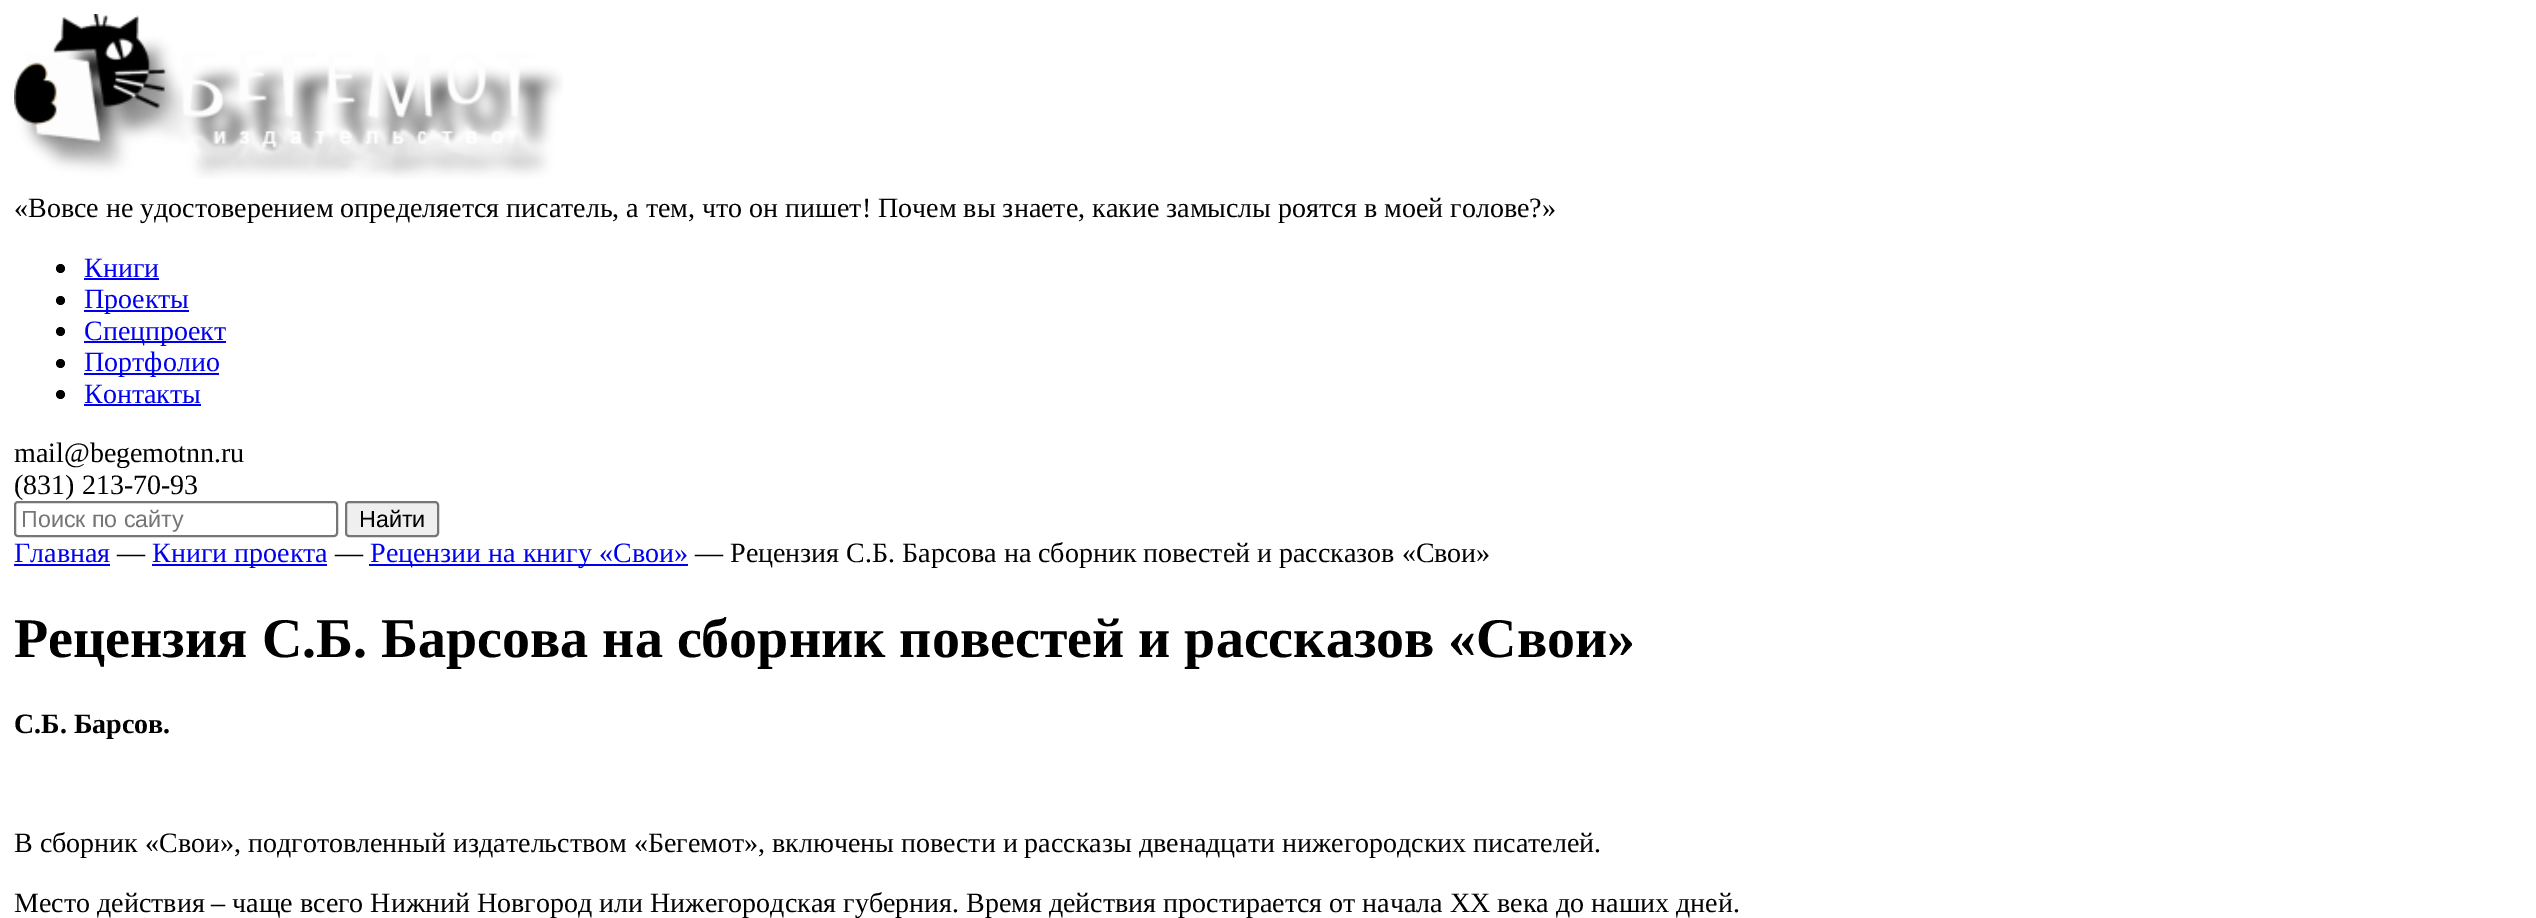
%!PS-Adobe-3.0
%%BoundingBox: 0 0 2536 918
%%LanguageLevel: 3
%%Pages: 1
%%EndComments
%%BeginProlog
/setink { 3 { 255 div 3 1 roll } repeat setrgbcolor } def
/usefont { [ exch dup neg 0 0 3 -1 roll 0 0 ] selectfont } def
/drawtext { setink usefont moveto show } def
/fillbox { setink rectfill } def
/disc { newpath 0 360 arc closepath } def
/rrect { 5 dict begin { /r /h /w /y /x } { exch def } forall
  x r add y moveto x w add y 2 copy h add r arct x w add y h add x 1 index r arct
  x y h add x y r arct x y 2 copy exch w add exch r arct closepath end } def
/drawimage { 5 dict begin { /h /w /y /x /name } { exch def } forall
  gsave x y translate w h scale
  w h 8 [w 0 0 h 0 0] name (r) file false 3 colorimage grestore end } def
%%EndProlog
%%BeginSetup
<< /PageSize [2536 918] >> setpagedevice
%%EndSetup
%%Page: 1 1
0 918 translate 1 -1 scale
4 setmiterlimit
0 0 2536 918 255 255 255 fillbox
(assets/img1.rgb) 14 14 549 165 drawimage
(«Вовсе не удостоверением определяется писатель, а тем, что он пишет! Почем вы знаете, какие замыслы роятся в моей голове?») 14 217 /LiberationSerif-Regular 28 0 0 0 drawtext
60.5 268.5 4.5 disc fill
(Книги) 84 277 /LiberationSerif-Regular 28 0 0 238 drawtext
84 278 75 2 0 0 238 fillbox
0 0 0 setink
60.5 300.5 4.5 disc fill
84 310 105 2 0 0 238 fillbox
(Проекты) 84 308 /LiberationSerif-Regular 28 0 0 238 drawtext
0 0 0 setink
60.5 331.5 4.5 disc fill
84 341 142 2 0 0 238 fillbox
(Спецпроект) 84 340 /LiberationSerif-Regular 28 0 0 238 drawtext
0 0 0 setink
60.5 363.5 4.5 disc fill
84 373 135 2 0 0 238 fillbox
(Портфолио) 84 371 /LiberationSerif-Regular 28 0 0 238 drawtext
0 0 0 setink
60.5 394.5 4.5 disc fill
(Контакты) 84 403 /LiberationSerif-Regular 28 0 0 238 drawtext
84 404 117 2 0 0 238 fillbox
(mail@begemotnn.ru) 14 462 /LiberationSerif-Regular 28 0 0 0 drawtext
(\(831\) 213-70-93) 14 494 /LiberationSerif-Regular 28 0 0 0 drawtext
118 118 118 setink
2 setlinewidth
15 502 322 34 3 rrect stroke
(Поиск по сайту) 21 527 /LiberationSans-Regular 23.25 117 117 117 drawtext
239 239 239 setink
346 502 92 34 3 rrect gsave fill grestore
118 118 118 setink
stroke
(Найти) 359 527 /LiberationSans-Regular 23.25 0 0 0 drawtext
(Главная) 14 562 /LiberationSerif-Regular 28 0 0 238 drawtext
14 564 96 2 0 0 238 fillbox
(—) 117 562 /LiberationSerif-Regular 28 0 0 0 drawtext
152 564 175 2 0 0 238 fillbox
(Книги проекта) 152 562 /LiberationSerif-Regular 28 0 0 238 drawtext
(—) 335 562 /LiberationSerif-Regular 28 0 0 0 drawtext
369 564 319 2 0 0 238 fillbox
(Рецензии на книгу «Свои») 370 562 /LiberationSerif-Regular 28 0 0 238 drawtext
(— Рецензия С.Б. Барсова на сборник повестей и рассказов «Свои») 695 562 /LiberationSerif-Regular 28 0 0 0 drawtext
(Рецензия С.Б. Барсова на сборник повестей и рассказов «Свои») 14 657 /LiberationSerif-Bold 56 0 0 0 drawtext
(С.Б. Барсов.) 14 733 /LiberationSerif-Bold 28 0 0 0 drawtext
(В сборник «Свои», подготовленный издательством «Бегемот», включены повести и рассказы двенадцати нижегородских писателей.) 14 852 /LiberationSerif-Regular 28 0 0 0 drawtext
(Место действия – чаще всего Нижний Новгород или Нижегородская губерния. Время действия простирается от начала ХХ века до наших дней.) 14 912 /LiberationSerif-Regular 28 0 0 0 drawtext
showpage
%%EOF
